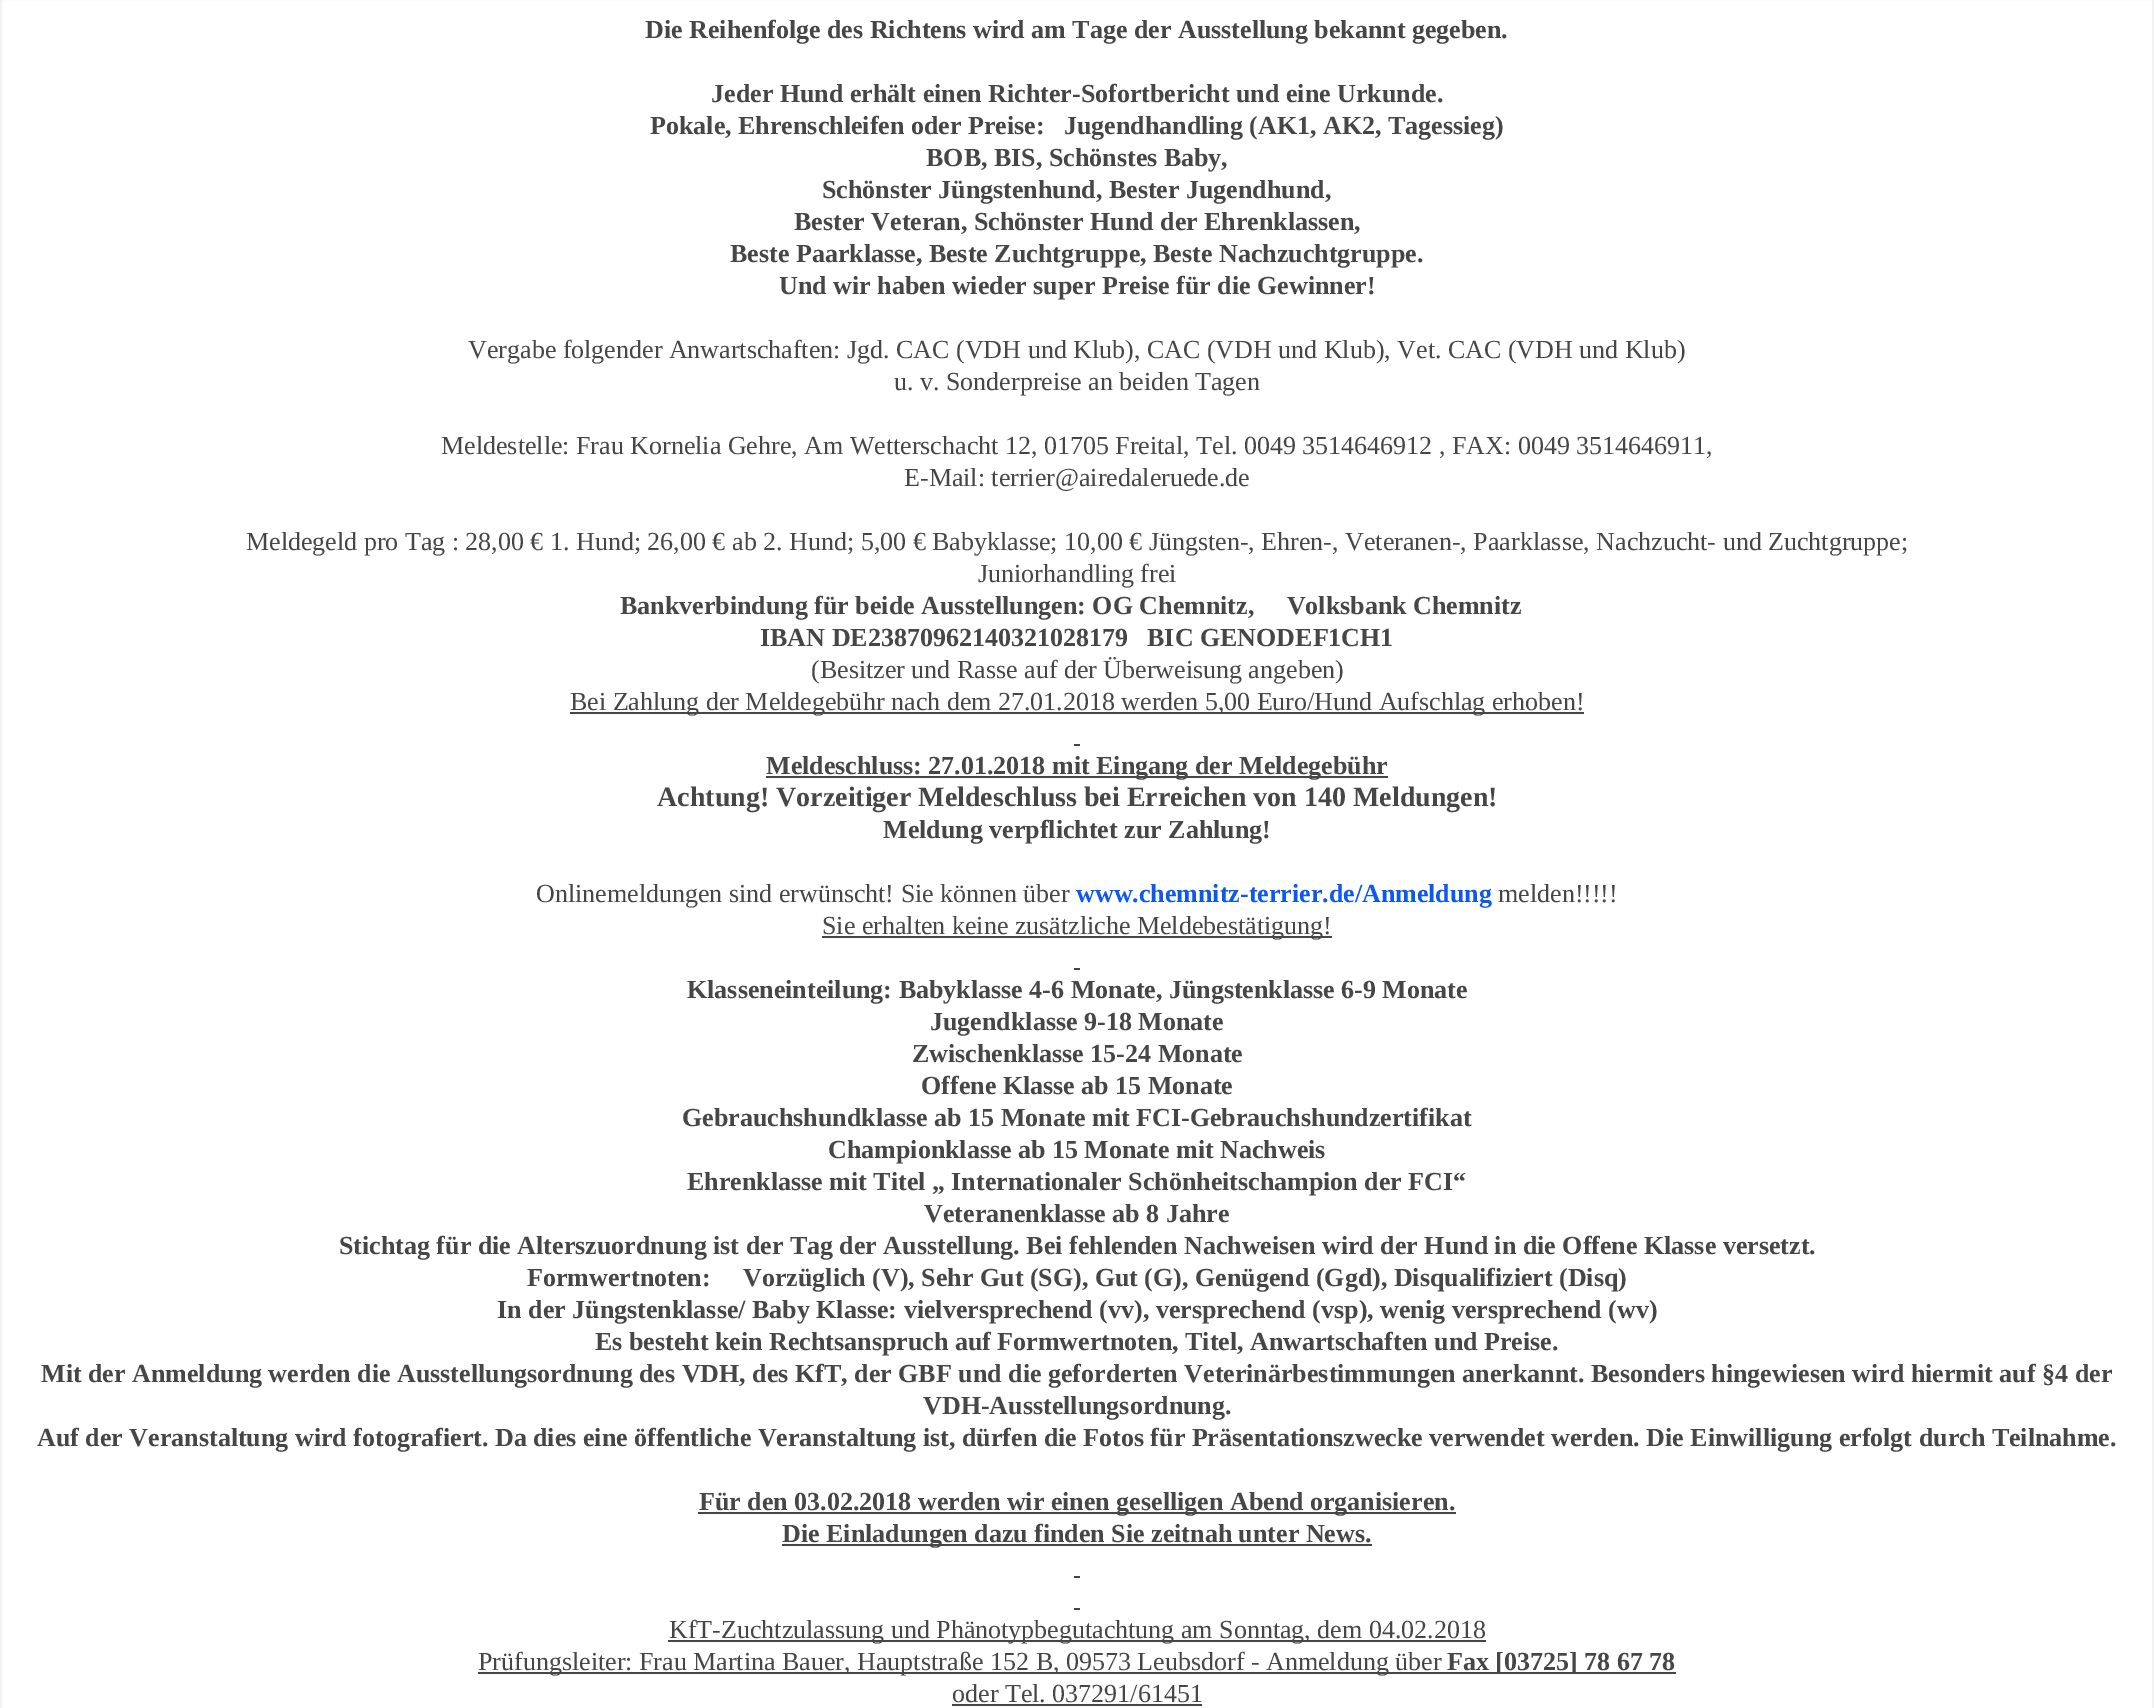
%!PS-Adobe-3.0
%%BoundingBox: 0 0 2154 1708
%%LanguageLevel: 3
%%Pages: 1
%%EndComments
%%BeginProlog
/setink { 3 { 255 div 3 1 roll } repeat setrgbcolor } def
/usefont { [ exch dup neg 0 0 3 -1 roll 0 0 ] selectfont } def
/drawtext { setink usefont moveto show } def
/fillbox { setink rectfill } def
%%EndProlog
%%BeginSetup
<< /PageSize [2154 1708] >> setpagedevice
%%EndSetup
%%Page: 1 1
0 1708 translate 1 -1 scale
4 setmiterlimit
0 0 2154 1708 255 255 255 fillbox
242 242 242 setink
2 setlinewidth
1 -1 2152 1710 rectstroke
(Die Reihenfolge des Richtens wird am Tage der Ausstellung bekannt gegeben.) 645 38 /LiberationSerif-Bold 26 70 70 70 drawtext
(Jeder Hund erhält einen Richter-Sofortbericht und eine Urkunde.) 711 102 /LiberationSerif-Bold 26 70 70 70 drawtext
(Pokale, Ehrenschleifen oder Preise:   Jugendhandling \(AK1, AK2, Tagessieg\)) 650 134 /LiberationSerif-Bold 26 70 70 70 drawtext
(BOB, BIS, Schönstes Baby,) 926 166 /LiberationSerif-Bold 26 70 70 70 drawtext
(Schönster Jüngstenhund, Bester Jugendhund,) 822 198 /LiberationSerif-Bold 26 70 70 70 drawtext
(Bester Veteran, Schönster Hund der Ehrenklassen,) 794 230 /LiberationSerif-Bold 26 70 70 70 drawtext
(Beste Paarklasse, Beste Zuchtgruppe, Beste Nachzuchtgruppe.) 730 262 /LiberationSerif-Bold 26 70 70 70 drawtext
(Und wir haben wieder super Preise für die Gewinner!) 779 294 /LiberationSerif-Bold 26 70 70 70 drawtext
(Vergabe folgender Anwartschaften: Jgd. CAC \(VDH und Klub\), CAC \(VDH und Klub\), Vet. CAC \(VDH und Klub\)) 468 358 /LiberationSerif-Regular 26 70 70 70 drawtext
(u. v. Sonderpreise an beiden Tagen) 894 390 /LiberationSerif-Regular 26 70 70 70 drawtext
(Meldestelle: Frau Kornelia Gehre, Am Wetterschacht 12, 01705 Freital, Tel. 0049 3514646912 , FAX: 0049 3514646911,) 441 454 /LiberationSerif-Regular 26 70 70 70 drawtext
(E-Mail: terrier@airedaleruede.de) 904 486 /LiberationSerif-Regular 26 70 70 70 drawtext
(Meldegeld pro Tag : 28,00 € 1. Hund; 26,00 € ab 2. Hund; 5,00 € Babyklasse; 10,00 € Jüngsten-, Ehren-, Veteranen-, Paarklasse, Nachzucht- und Zuchtgruppe;) 246 550 /LiberationSerif-Regular 26 70 70 70 drawtext
(Juniorhandling frei) 978 582 /LiberationSerif-Regular 26 70 70 70 drawtext
(Bankverbindung für beide Ausstellungen: OG Chemnitz,     Volksbank Chemnitz) 620 614 /LiberationSerif-Bold 26 70 70 70 drawtext
(IBAN DE23870962140321028179   BIC GENODEF1CH1) 760 646 /LiberationSerif-Bold 26 70 70 70 drawtext
(\(Besitzer und Rasse auf der Überweisung angeben\)) 811 678 /LiberationSerif-Regular 26 70 70 70 drawtext
570 712 292 2 70 70 70 fillbox
(Bei Zahlung der Meldegebü) 570 710 /LiberationSerif-Regular 26 70 70 70 drawtext
862 712 722 2 70 70 70 fillbox
(hr nach dem 27.01.2018 werden 5,00 Euro/Hund Aufschlag erhoben!) 863 710 /LiberationSerif-Regular 26 70 70 70 drawtext
1074 744 6 2 70 70 70 fillbox
766 776 622 2 70 70 70 fillbox
(Meldeschluss: 27.01.2018 mit Eingang der Meldegebühr) 766 774 /LiberationSerif-Bold 26 70 70 70 drawtext
(Achtung! Vorzeitiger Meldeschluss bei Erreichen von 140 Meldungen!) 657 806 /LiberationSerif-Bold 28 70 70 70 drawtext
(Meldung verpflichtet zur Zahlung!) 883 838 /LiberationSerif-Bold 26 70 70 70 drawtext
(Onlinemeldungen sind erwünscht! Sie können über) 536 902 /LiberationSerif-Regular 26 70 70 70 drawtext
(www.chemnitz-terrier.de/Anmeldung) 1076 902 /LiberationSerif-Bold 26 13 88 240 drawtext
(melden!!!!!) 1498 902 /LiberationSerif-Regular 26 70 70 70 drawtext
822 936 510 2 70 70 70 fillbox
(Sie erhalten keine zusätzliche Meldebestätigung!) 822 934 /LiberationSerif-Regular 26 70 70 70 drawtext
1074 968 6 2 70 70 70 fillbox
(Klasseneinteilung: Babyklasse 4-6 Monate, Jüngstenklasse 6-9 Monate) 687 998 /LiberationSerif-Bold 26 70 70 70 drawtext
(Jugendklasse 9-18 Monate) 930 1030 /LiberationSerif-Bold 26 70 70 70 drawtext
(Zwischenklasse 15-24 Monate) 912 1062 /LiberationSerif-Bold 26 70 70 70 drawtext
(Offene Klasse ab 15 Monate) 921 1094 /LiberationSerif-Bold 26 70 70 70 drawtext
(Gebrauchshundklasse ab 15 Monate mit FCI-Gebrauchshundzertifikat) 682 1126 /LiberationSerif-Bold 26 70 70 70 drawtext
(Championklasse ab 15 Monate mit Nachweis) 828 1158 /LiberationSerif-Bold 26 70 70 70 drawtext
(Ehrenklasse mit Titel „ Internationaler Schönheitschampion der FCI“) 687 1190 /LiberationSerif-Bold 26 70 70 70 drawtext
(Veteranenklasse ab 8 Jahre) 924 1222 /LiberationSerif-Bold 26 70 70 70 drawtext
(Stichtag für die Alterszuordnung ist der Tag der Ausstellung. Bei fehlenden Nachweisen wird der Hund in die Offene Klasse versetzt.) 339 1254 /LiberationSerif-Bold 26 70 70 70 drawtext
(Formwertnoten:) 527 1286 /LiberationSerif-Bold 26 70 70 70 drawtext
(Vorzüglich \(V\), Sehr Gut \(SG\), Gut \(G\), Genügend \(Ggd\), Disqualifiziert \(Disq\)) 743 1286 /LiberationSerif-Bold 26 70 70 70 drawtext
(In der Jüngstenklasse/ Baby Klasse: vielversprechend \(vv\), versprechend \(vsp\), wenig versprechend \(wv\)) 497 1318 /LiberationSerif-Bold 26 70 70 70 drawtext
(Es besteht kein Rechtsanspruch auf Formwertnoten, Titel, Anwartschaften und Preise.) 595 1350 /LiberationSerif-Bold 26 70 70 70 drawtext
(Mit der Anmeldung werden die Ausstellungsordnung des VDH, des KfT, der GBF und die geforderten Veterinärbestimmungen anerkannt. Besonders hingewiesen wird hiermit auf §4 der) 41 1382 /LiberationSerif-Bold 26 70 70 70 drawtext
(VDH-Ausstellungsordnung.) 923 1414 /LiberationSerif-Bold 26 70 70 70 drawtext
(Auf der Veranstaltung wird fotografiert. Da dies eine öffentliche Veranstaltung ist, dürfen die Fotos für Präsentationszwecke verwendet werden. Die Einwilligung erfolgt durch Teilnahme.) 37 1446 /LiberationSerif-Bold 26 70 70 70 drawtext
698 1512 758 2 70 70 70 fillbox
(Für den 03.02.2018 werden wir einen geselligen Abend organisieren.) 699 1510 /LiberationSerif-Bold 26 70 70 70 drawtext
782 1544 590 2 70 70 70 fillbox
(Die Einladungen dazu finden Sie zeitnah unter News.) 782 1542 /LiberationSerif-Bold 26 70 70 70 drawtext
1074 1576 6 2 70 70 70 fillbox
1074 1608 6 2 70 70 70 fillbox
668 1640 818 2 70 70 70 fillbox
(KfT-Zuchtzulassung und Phänotypbegutachtung am Sonntag, dem 04.02.2018) 669 1638 /LiberationSerif-Regular 26 70 70 70 drawtext
478 1672 480 2 70 70 70 fillbox
(Prüfungsleiter: Frau Martina Bauer, Hauptstra) 478 1670 /LiberationSerif-Regular 26 70 70 70 drawtext
958 1672 718 2 70 70 70 fillbox
(ße 152 B, 09573 Leubsdorf - Anmeldung über) 959 1670 /LiberationSerif-Regular 26 70 70 70 drawtext
(Fax [03725] 78 67 78) 1447 1670 /LiberationSerif-Bold 26 70 70 70 drawtext
(oder Tel. 037291/61451) 952 1702 /LiberationSerif-Regular 26 70 70 70 drawtext
952 1704 250 2 70 70 70 fillbox
showpage
%%EOF
